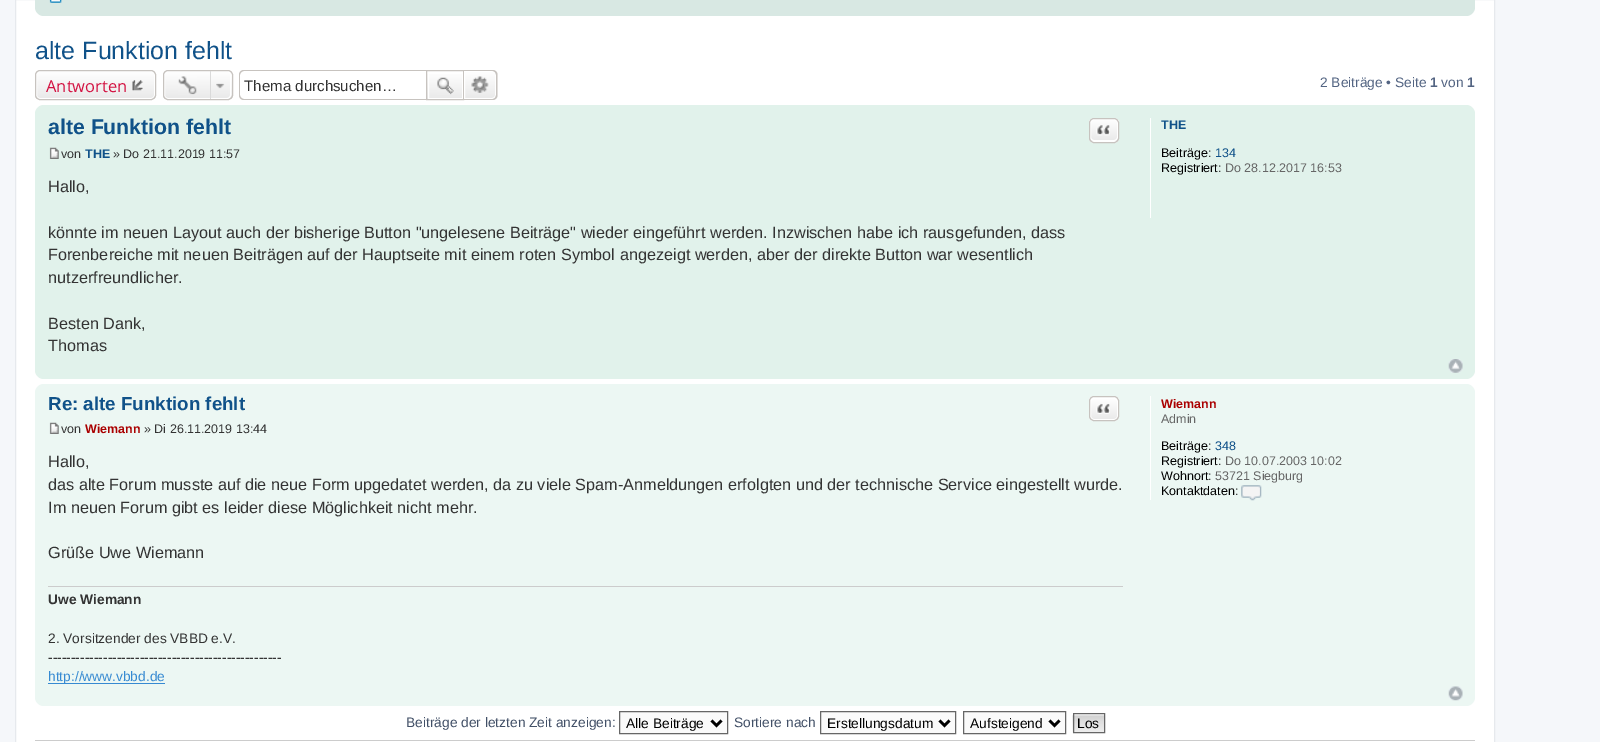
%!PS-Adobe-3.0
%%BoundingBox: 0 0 1600 742
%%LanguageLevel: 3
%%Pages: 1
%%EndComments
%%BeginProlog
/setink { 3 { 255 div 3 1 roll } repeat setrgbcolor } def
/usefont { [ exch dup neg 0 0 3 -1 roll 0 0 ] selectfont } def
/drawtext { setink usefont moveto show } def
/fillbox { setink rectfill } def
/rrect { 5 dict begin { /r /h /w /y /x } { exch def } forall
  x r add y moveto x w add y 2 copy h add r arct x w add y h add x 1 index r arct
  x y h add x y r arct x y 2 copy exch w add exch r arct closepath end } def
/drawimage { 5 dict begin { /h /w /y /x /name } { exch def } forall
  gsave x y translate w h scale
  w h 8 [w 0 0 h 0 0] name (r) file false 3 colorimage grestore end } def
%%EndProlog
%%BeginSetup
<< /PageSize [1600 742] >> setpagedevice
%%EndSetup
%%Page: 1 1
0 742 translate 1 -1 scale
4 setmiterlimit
0 0 1600 742 245 247 250 fillbox
255 255 255 setink
15.5 -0.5 moveto 1494.5 -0.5 lineto 1494.5 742.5 lineto 15.5 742.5 lineto closepath gsave fill grestore
230 233 237 setink
stroke
216 232 227 setink
35 -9 1440 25 9 rrect fill
(assets/img1.rgb) 49 0 13 3 drawimage
(alte Funktion fehlt) 35 59 /LiberationSans-Regular 25 16 82 137 drawtext
gsave
35 70 121 30 5 rrect clip newpath
gsave 35 71 moveto 156 71 lineto 156 99 lineto 35 99 lineto closepath clip newpath
<< /ShadingType 2 /ColorSpace /DeviceRGB /Coords [96 71 96 99] /Extend [true true] /Function << /FunctionType 2 /Domain [0 1] /C0 [1 1 1] /C1 [0.914 0.914 0.914] /N 1 >> >> shfill grestore
grestore
255 255 255 setink
36.5 71.5 118 27 3.5 rrect stroke
199 195 191 setink
35.5 70.5 120 29 4.5 rrect stroke
(Antworten) 46 92 /OpenSans-Regular 16.5 211 17 65 drawtext
(assets/img2.rgb) 132 80 11 11 drawimage
gsave
163 70 70 30 5 rrect clip newpath
gsave 163 71 moveto 233 71 lineto 233 99 lineto 163 99 lineto closepath clip newpath
<< /ShadingType 2 /ColorSpace /DeviceRGB /Coords [198 71 198 99] /Extend [true true] /Function << /FunctionType 2 /Domain [0 1] /C0 [1 1 1] /C1 [0.914 0.914 0.914] /N 1 >> >> shfill grestore
grestore
255 255 255 setink
164.5 71.5 66 27 3.5 rrect stroke
199 195 191 setink
163.5 70.5 69 29 4.5 rrect stroke
(assets/img3.rgb) 178 76 19 19 drawimage
(assets/img4.rgb) 216 83 9 6 drawimage
210 71 1 28 218 218 218 fillbox
199 195 191 setink
244 70 moveto 426 70 lineto 426 100 lineto 244 100 lineto 241 100 239 98 239 95 curveto 239 75 lineto 239 72 241 70 244 70 curveto closepath 244 71 moveto 426 71 lineto 426 99 lineto 244 99 lineto 242 99 240 97 240 95 curveto 240 75 lineto 240 73 242 71 244 71 curveto closepath eofill
(Thema durchsuchen…) 244 91 /LiberationSans-Regular 15.1 51 51 51 drawtext
gsave 427 74 moveto 462 74 lineto 462 99 lineto 427 99 lineto closepath clip newpath
<< /ShadingType 2 /ColorSpace /DeviceRGB /Coords [445 71 445 99] /Extend [true true] /Function << /FunctionType 2 /Domain [0 1] /C0 [1 1 1] /C1 [0.914 0.914 0.914] /N 1 >> >> shfill grestore
255 255 255 setink
428.5 71.5 34 27 rectstroke
199 195 191 setink
426.5 70.5 37 29 rectstroke
(assets/img5.rgb) 437 77 17 18 drawimage
gsave 464.5 71.5 moveto 492 71.5 lineto 494 71.5 495.5 73 495.5 75 curveto 495.5 95 lineto 495.5 97 494 98.5 492 98.5 curveto 464.5 98.5 lineto closepath clip newpath
<< /ShadingType 2 /ColorSpace /DeviceRGB /Coords [480 71 480 99] /Extend [true true] /Function << /FunctionType 2 /Domain [0 1] /C0 [1 1 1] /C1 [0.914 0.914 0.914] /N 1 >> >> shfill grestore
255 255 255 setink
464.5 71.5 moveto 492 71.5 lineto 494 71.5 495.5 73 495.5 75 curveto 495.5 95 lineto 495.5 97 494 98.5 492 98.5 curveto 464.5 98.5 lineto closepath stroke
199 195 191 setink
464 70 moveto 492.5 70 lineto 495.5 70 497.5 72 497.5 75 curveto 497.5 95 lineto 497.5 98 495.5 100 492.5 100 curveto 464 100 lineto closepath 464 71 moveto 492.5 71 lineto 494.5 71 496 73 496 75 curveto 496 95 lineto 496 97 494.5 99 492.5 99 curveto 464 99 lineto closepath eofill
(assets/img6.rgb) 471 76 18 17 drawimage
(2 Beiträge • Seite) 1320 87 /LiberationSans-Regular 13.75 83 100 130 drawtext
(1) 1430 87 /LiberationSans-Bold 13.75 83 100 130 drawtext
(von) 1441 87 /LiberationSans-Regular 13.75 83 100 130 drawtext
(1) 1467 87 /LiberationSans-Bold 13.75 83 100 130 drawtext
225 242 235 setink
35 105 1440 274 9 rrect fill
(alte Funktion fehlt) 48 134 /LiberationSans-Bold 21.25 16 82 137 drawtext
255 255 255 setink
1089 118 30 25 5 rrect fill
gsave
1089 118 30 25 5 rrect clip newpath
gsave 1089 119 moveto 1119 119 lineto 1119 141 lineto 1089 141 lineto closepath clip newpath
<< /ShadingType 2 /ColorSpace /DeviceRGB /Coords [1104 119 1104 141] /Extend [true true] /Function << /FunctionType 2 /Domain [0 1] /C0 [1 1 1] /C1 [0.914 0.914 0.914] /N 1 >> >> shfill grestore
grestore
1090.5 119.5 27 21 3.5 rrect stroke
199 195 191 setink
1089.5 118.5 29 24 4.5 rrect stroke
(assets/img7.rgb) 1096 125 14 11 drawimage
(assets/img8.rgb) 49 147 10 12 drawimage
(von) 61 158 /LiberationSans-Regular 12.5 51 51 51 drawtext
(THE) 85 158 /LiberationSans-Bold 12.5 16 82 137 drawtext
(» Do 21.11.2019 11:57) 113 158 /LiberationSans-Regular 12.5 51 51 51 drawtext
(Hallo,) 48 192 /LiberationSans-Regular 16.25 51 51 51 drawtext
(könnte im neuen Layout auch der bisherige Button "ungelesene Beiträge" wieder eingeführt werden. Inzwischen habe ich rausgefunden, dass) 48 238 /LiberationSans-Regular 16.25 51 51 51 drawtext
(Forenbereiche mit neuen Beiträgen auf der Hauptseite mit einem roten Symbol angezeigt werden, aber der direkte Button war wesentlich) 48 260 /LiberationSans-Regular 16.25 51 51 51 drawtext
(nutzerfreundlicher.) 48 283 /LiberationSans-Regular 16.25 51 51 51 drawtext
(Besten Dank,) 48 329 /LiberationSans-Regular 16.25 51 51 51 drawtext
(Thomas) 48 351 /LiberationSans-Regular 16.25 51 51 51 drawtext
1150 118 1 100 255 255 255 fillbox
(THE) 1161 129 /LiberationSans-Bold 12.5 16 82 137 drawtext
(Beiträge:) 1161 157 /LiberationSans-Regular 12.5 0 0 0 drawtext
(134) 1215 157 /LiberationSans-Regular 12.5 16 82 137 drawtext
(Registriert:) 1161 172 /LiberationSans-Regular 12.5 0 0 0 drawtext
(Do 28.12.2017 16:53) 1225 172 /LiberationSans-Regular 12.5 102 102 102 drawtext
(assets/img9.rgb) 1448 359 15 14 drawimage
236 247 243 setink
35 384 1440 322 9 rrect fill
(Re: alte Funktion fehlt) 48 410 /LiberationSans-Bold 18.75 16 82 137 drawtext
255 255 255 setink
1089 396 30 25 5 rrect fill
gsave
1089 396 30 25 5 rrect clip newpath
gsave 1089 398 moveto 1119 398 lineto 1119 420 lineto 1089 420 lineto closepath clip newpath
<< /ShadingType 2 /ColorSpace /DeviceRGB /Coords [1104 398 1104 420] /Extend [true true] /Function << /FunctionType 2 /Domain [0 1] /C0 [1 1 1] /C1 [0.914 0.914 0.914] /N 1 >> >> shfill grestore
grestore
1090.5 398.5 27 21 3.5 rrect stroke
199 195 191 setink
1089.5 396.5 29 24 4.5 rrect stroke
(assets/img10.rgb) 1096 403 14 11 drawimage
(assets/img11.rgb) 49 422 10 12 drawimage
(von) 61 433 /LiberationSans-Regular 12.5 51 51 51 drawtext
(Wiemann) 85 433 /LiberationSans-Bold 12.5 170 0 0 drawtext
(» Di 26.11.2019 13:44) 144 433 /LiberationSans-Regular 12.5 51 51 51 drawtext
(Hallo,) 48 467 /LiberationSans-Regular 16.25 51 51 51 drawtext
(das alte Forum musste auf die neue Form upgedatet werden, da zu viele Spam-Anmeldungen erfolgten und der technische Service eingestellt wurde.) 48 490 /LiberationSans-Regular 16.25 51 51 51 drawtext
(Im neuen Forum gibt es leider diese Möglichkeit nicht mehr.) 48 513 /LiberationSans-Regular 16.25 51 51 51 drawtext
(Grüße Uwe Wiemann) 48 558 /LiberationSans-Regular 16.25 51 51 51 drawtext
48 586 1075 1 204 204 204 fillbox
(Uwe Wiemann) 48 604 /LiberationSans-Bold 13.75 51 51 51 drawtext
(2. Vorsitzender des VBBD e.V.) 48 643 /LiberationSans-Regular 13.75 51 51 51 drawtext
(---------------------------------------------------) 48 662 /LiberationSans-Regular 13.75 51 51 51 drawtext
48 683 117 1 54 138 210 fillbox
(http://www.vbbd.de) 48 681 /LiberationSans-Regular 13.75 54 138 210 drawtext
1150 396 1 104 255 255 255 fillbox
(Wiemann) 1161 408 /LiberationSans-Bold 12.5 170 0 0 drawtext
(Admin) 1161 423 /LiberationSans-Regular 12.5 102 102 102 drawtext
(Beiträge:) 1161 450 /LiberationSans-Regular 12.5 0 0 0 drawtext
(348) 1215 450 /LiberationSans-Regular 12.5 16 82 137 drawtext
(Registriert:) 1161 465 /LiberationSans-Regular 12.5 0 0 0 drawtext
(Do 10.07.2003 10:02) 1225 465 /LiberationSans-Regular 12.5 102 102 102 drawtext
(Wohnort:) 1161 480 /LiberationSans-Regular 12.5 0 0 0 drawtext
(53721 Siegburg) 1215 480 /LiberationSans-Regular 12.5 102 102 102 drawtext
(Kontaktdaten:) 1161 495 /LiberationSans-Regular 12.5 0 0 0 drawtext
(assets/img12.rgb) 1241 485 21 16 drawimage
(assets/img13.rgb) 1448 686 15 15 drawimage
(Beiträge der letzten Zeit anzeigen:) 406 727 /LiberationSans-Regular 13.75 66 80 103 drawtext
250 250 250 setink
619.5 711.5 moveto 727.5 711.5 lineto 727.5 733.5 lineto 619.5 733.5 lineto closepath gsave fill grestore
102 102 102 setink
stroke
0 0 0 setink
2.5 setlinewidth
711.5 720.5 moveto 716.5 725.5 lineto 721.5 720.5 lineto stroke
(Alle Beiträge) 626 728 /LiberationSans-Regular 13.75 0 0 0 drawtext
(Sortiere nach) 734 727 /LiberationSans-Regular 13.75 66 80 103 drawtext
250 250 250 setink
820.5 711.5 moveto 955.5 711.5 lineto 955.5 733.5 lineto 820.5 733.5 lineto closepath gsave fill grestore
102 102 102 setink
1 setlinewidth
stroke
0 0 0 setink
2.5 setlinewidth
939.5 720.5 moveto 944.5 725.5 lineto 949.5 720.5 lineto stroke
(Erstellungsdatum) 827 728 /LiberationSans-Regular 13.75 0 0 0 drawtext
250 250 250 setink
963.5 711.5 moveto 1065.5 711.5 lineto 1065.5 733.5 lineto 963.5 733.5 lineto closepath gsave fill grestore
102 102 102 setink
1 setlinewidth
stroke
0 0 0 setink
2.5 setlinewidth
1049.5 720.5 moveto 1054.5 725.5 lineto 1059.5 720.5 lineto stroke
(Aufsteigend) 970 728 /LiberationSans-Regular 13.75 0 0 0 drawtext
(assets/img14.rgb) 1072 714 32 19 drawimage
102 102 102 setink
1 setlinewidth
1073.5 713.5 31 19 rectstroke
(Los) 1077 728 /LiberationSans-Regular 13.75 0 0 0 drawtext
35 740 1440 1 204 204 204 fillbox
showpage
%%EOF
